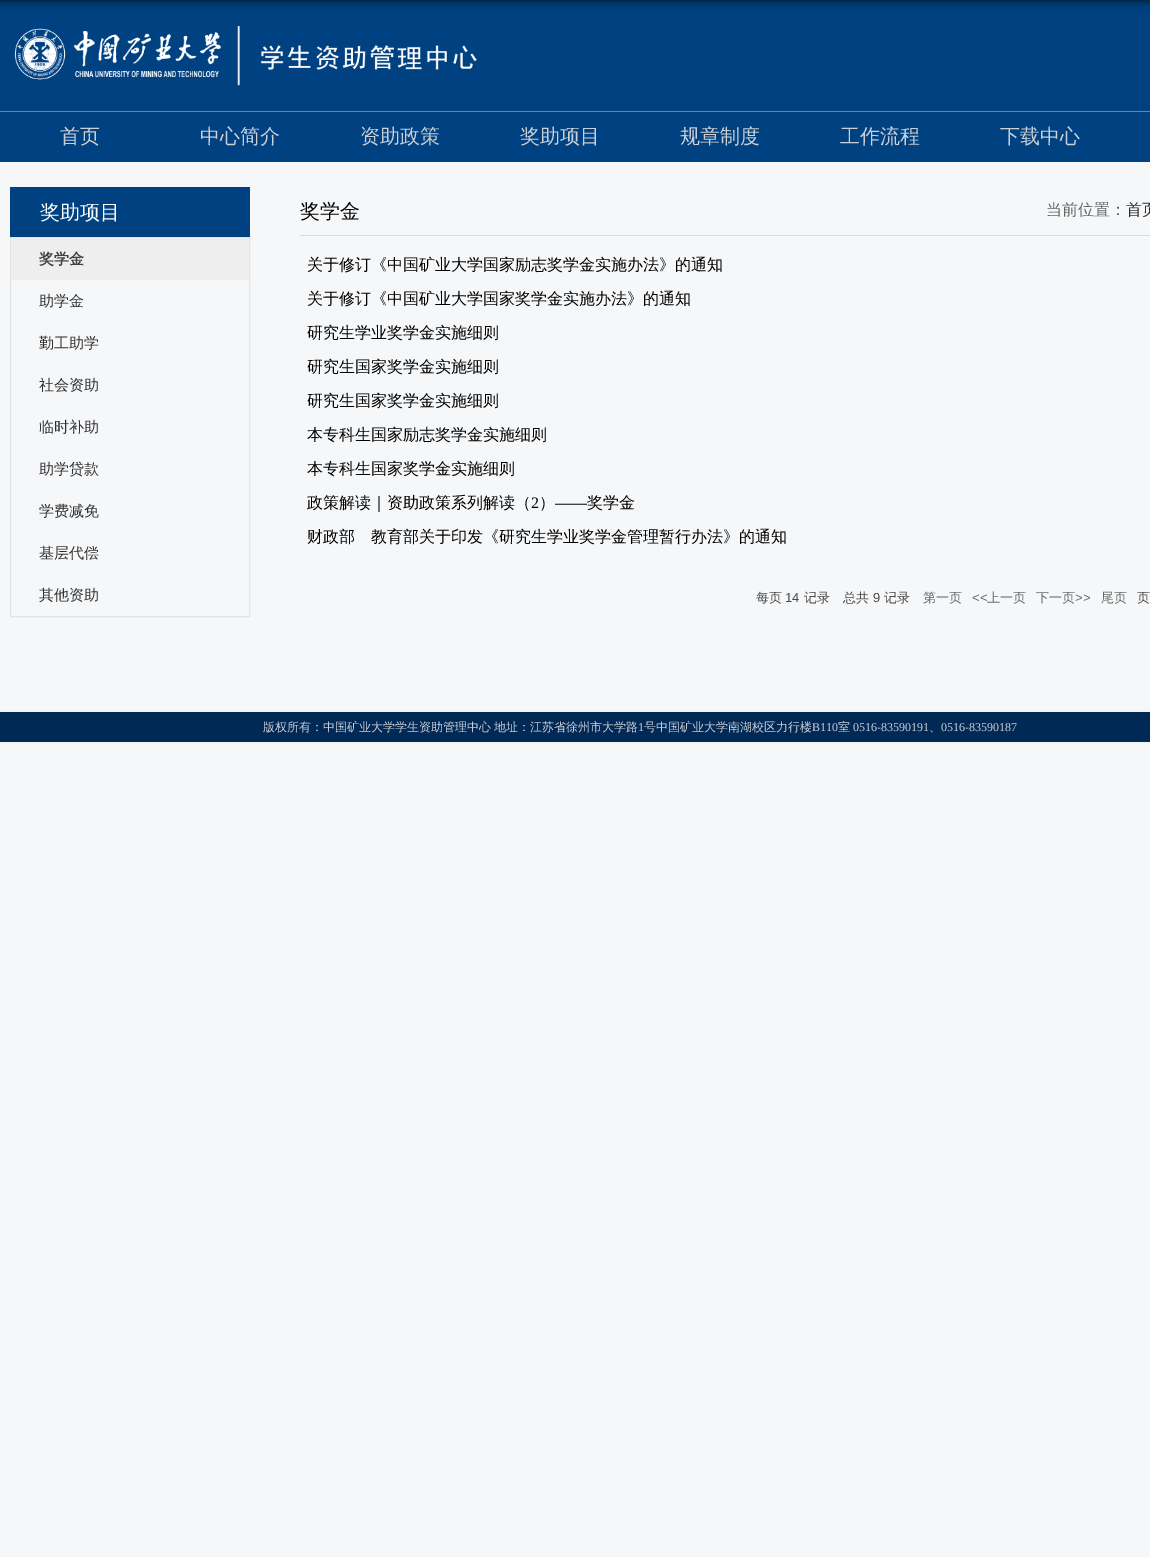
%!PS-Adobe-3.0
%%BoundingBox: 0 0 1150 1557
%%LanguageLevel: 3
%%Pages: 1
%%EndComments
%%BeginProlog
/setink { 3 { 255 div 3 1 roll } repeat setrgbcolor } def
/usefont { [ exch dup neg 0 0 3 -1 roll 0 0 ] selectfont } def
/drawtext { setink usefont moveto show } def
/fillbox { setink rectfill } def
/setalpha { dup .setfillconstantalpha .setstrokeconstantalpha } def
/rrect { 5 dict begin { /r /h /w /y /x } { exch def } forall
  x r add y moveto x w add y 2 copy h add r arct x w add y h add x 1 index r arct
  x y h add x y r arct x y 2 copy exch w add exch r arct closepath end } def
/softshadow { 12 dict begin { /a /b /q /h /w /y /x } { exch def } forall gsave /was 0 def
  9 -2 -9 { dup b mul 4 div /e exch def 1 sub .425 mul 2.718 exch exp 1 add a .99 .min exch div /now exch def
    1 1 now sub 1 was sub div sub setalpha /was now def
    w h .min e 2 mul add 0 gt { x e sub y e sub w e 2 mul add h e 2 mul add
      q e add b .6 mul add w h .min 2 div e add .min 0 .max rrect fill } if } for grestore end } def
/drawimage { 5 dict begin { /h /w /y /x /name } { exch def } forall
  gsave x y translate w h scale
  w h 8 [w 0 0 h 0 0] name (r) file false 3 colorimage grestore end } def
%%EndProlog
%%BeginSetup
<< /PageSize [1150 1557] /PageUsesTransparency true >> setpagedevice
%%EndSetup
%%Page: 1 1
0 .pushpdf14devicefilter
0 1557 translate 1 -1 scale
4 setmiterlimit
0 0 1150 1557 246 247 249 fillbox
0 0 1150 111 0 65 129 fillbox
(assets/img1.rgb) 14 26 463 60 drawimage
0 0 0 setink
0 -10 1150 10 0 5 0.8 softshadow
0 112 1150 50 0 65 129 fillbox
0 111 1150 1 128 128 128 fillbox
(首页) 60 143 /WenQuanYiZenHei-Medium 20 203 207 214 drawtext
(中心简介) 200 143 /WenQuanYiZenHei-Medium 20 203 207 214 drawtext
(资助政策) 360 143 /WenQuanYiZenHei-Medium 20 203 207 214 drawtext
(奖助项目) 520 143 /WenQuanYiZenHei-Medium 20 203 207 214 drawtext
(规章制度) 680 143 /WenQuanYiZenHei-Medium 20 203 207 214 drawtext
(工作流程) 840 143 /WenQuanYiZenHei-Medium 20 203 207 214 drawtext
(下载中心) 1000 143 /WenQuanYiZenHei-Medium 20 203 207 214 drawtext
10 187 240 50 0 65 129 fillbox
(奖助项目) 40 219 /WenQuanYiZenHei-Medium 20 255 255 255 drawtext
228 228 228 setink
10.5 237.5 239 379 rectstroke
11 238 238 42 238 238 238 fillbox
(奖学金) 39 264 /WenQuanYiZenHei-Bold 15 65 65 65 drawtext
(助学金) 39 306 /WenQuanYiZenHei-Medium 15 47 47 47 drawtext
(勤工助学) 39 348 /WenQuanYiZenHei-Medium 15 47 47 47 drawtext
(社会资助) 39 390 /WenQuanYiZenHei-Medium 15 47 47 47 drawtext
(临时补助) 39 432 /WenQuanYiZenHei-Medium 15 47 47 47 drawtext
(助学贷款) 39 474 /WenQuanYiZenHei-Medium 15 47 47 47 drawtext
(学费减免) 39 516 /WenQuanYiZenHei-Medium 15 47 47 47 drawtext
(基层代偿) 39 558 /WenQuanYiZenHei-Medium 15 47 47 47 drawtext
(其他资助) 39 600 /WenQuanYiZenHei-Medium 15 47 47 47 drawtext
300 235 850 1 219 219 219 fillbox
(奖学金) 300 218 /WenQuanYiZenHei-Medium 20 0 0 0 drawtext
(当前位置：) 1046 215 /WenQuanYiZenHei-Medium 16 102 102 102 drawtext
(首页) 1126 215 /WenQuanYiZenHei-Medium 16 47 47 47 drawtext
(关于修订《中国矿业大学国家励志奖学金实施办法》的通知) 307 270 /WenQuanYiZenHei-Medium 16 0 0 0 drawtext
(关于修订《中国矿业大学国家奖学金实施办法》的通知) 307 304 /WenQuanYiZenHei-Medium 16 0 0 0 drawtext
(研究生学业奖学金实施细则) 307 338 /WenQuanYiZenHei-Medium 16 0 0 0 drawtext
(研究生国家奖学金实施细则) 307 372 /WenQuanYiZenHei-Medium 16 0 0 0 drawtext
(研究生国家奖学金实施细则) 307 406 /WenQuanYiZenHei-Medium 16 0 0 0 drawtext
(本专科生国家励志奖学金实施细则) 307 440 /WenQuanYiZenHei-Medium 16 0 0 0 drawtext
(本专科生国家奖学金实施细则) 307 474 /WenQuanYiZenHei-Medium 16 0 0 0 drawtext
(政策解读｜资助政策系列解读（) 307 508 /WenQuanYiZenHei-Medium 16 0 0 0 drawtext
(2) 531 508 /LiberationSerif-Regular 16 0 0 0 drawtext
(）) 539 508 /WenQuanYiZenHei-Medium 16 0 0 0 drawtext
(——) 555 508 /LiberationSerif-Regular 16 0 0 0 drawtext
(奖学金) 587 508 /WenQuanYiZenHei-Medium 16 0 0 0 drawtext
(财政部　教育部关于印发《研究生学业奖学金管理暂行办法》的通知) 307 542 /WenQuanYiZenHei-Medium 16 0 0 0 drawtext
(每页) 756 602 /WenQuanYiZenHei-Medium 13 73 73 73 drawtext
(14) 785 602 /LiberationSans-Regular 13 73 73 73 drawtext
(记录) 804 602 /WenQuanYiZenHei-Medium 13 73 73 73 drawtext
(总共) 843 602 /WenQuanYiZenHei-Medium 13 73 73 73 drawtext
(9) 873 602 /LiberationSans-Regular 13 73 73 73 drawtext
(记录) 884 602 /WenQuanYiZenHei-Medium 13 73 73 73 drawtext
(第一页) 923 602 /WenQuanYiZenHei-Medium 13 102 102 102 drawtext
(<<) 972 602 /LiberationSans-Regular 13 102 102 102 drawtext
(上一页) 987 602 /WenQuanYiZenHei-Medium 13 102 102 102 drawtext
(下一页) 1036 602 /WenQuanYiZenHei-Medium 13 102 102 102 drawtext
(>>) 1075 602 /LiberationSans-Regular 13 102 102 102 drawtext
(尾页) 1101 602 /WenQuanYiZenHei-Medium 13 102 102 102 drawtext
(页) 1137 602 /WenQuanYiZenHei-Medium 13 73 73 73 drawtext
234 238 243 setink
0 712 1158 30 0 2.5 1 softshadow
0 712 1150 30 0 41 86 fillbox
(版权所有：中国矿业大学学生资助管理中心) 263 731 /WenQuanYiZenHei-Medium 12 203 207 214 drawtext
(地址：江苏省徐州市大学路) 494 731 /WenQuanYiZenHei-Medium 12 203 207 214 drawtext
(1) 638 731 /LiberationSerif-Regular 12 203 207 214 drawtext
(号中国矿业大学南湖校区力行楼) 644 731 /WenQuanYiZenHei-Medium 12 203 207 214 drawtext
(B110) 812 731 /LiberationSerif-Regular 12 203 207 214 drawtext
(室) 838 731 /WenQuanYiZenHei-Medium 12 203 207 214 drawtext
(0516-83590191) 853 731 /LiberationSerif-Regular 12 203 207 214 drawtext
(、) 929 731 /WenQuanYiZenHei-Medium 12 203 207 214 drawtext
(0516-83590187) 941 731 /LiberationSerif-Regular 12 203 207 214 drawtext
.poppdf14devicefilter showpage
%%EOF
